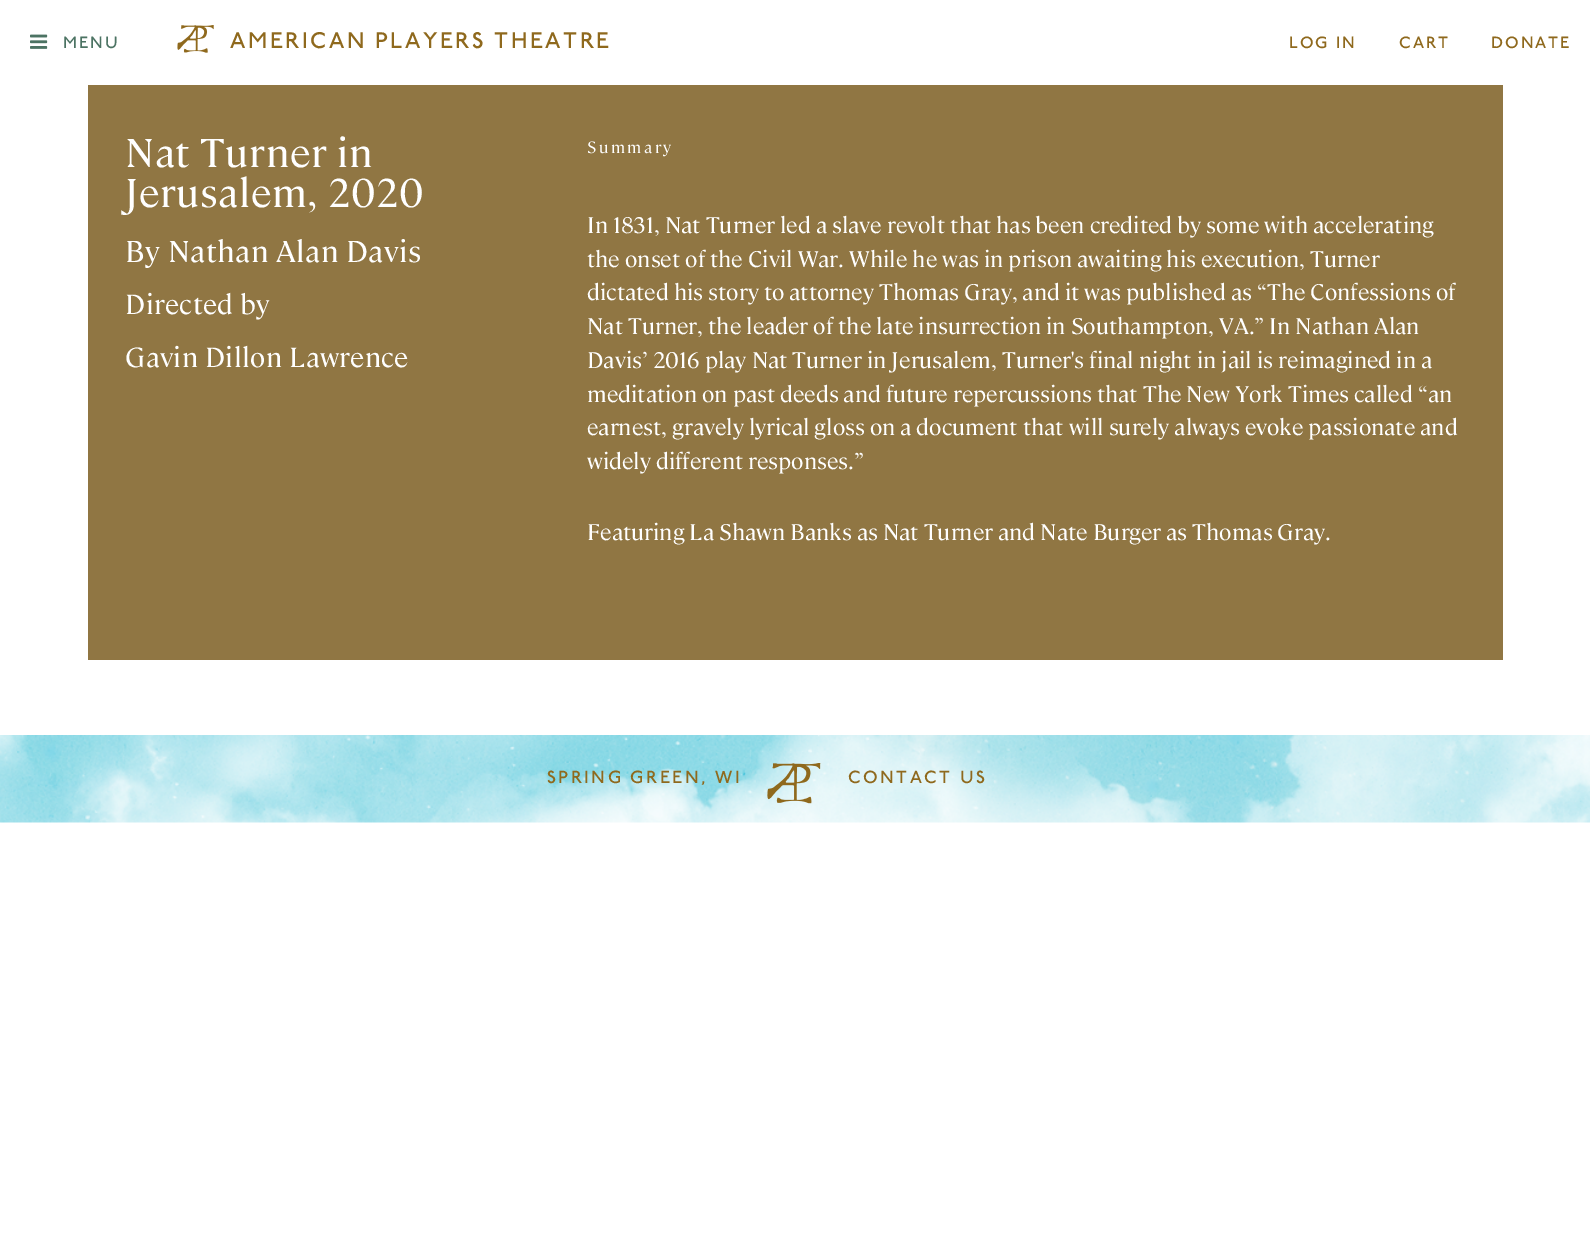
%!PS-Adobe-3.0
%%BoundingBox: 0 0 1590 1240
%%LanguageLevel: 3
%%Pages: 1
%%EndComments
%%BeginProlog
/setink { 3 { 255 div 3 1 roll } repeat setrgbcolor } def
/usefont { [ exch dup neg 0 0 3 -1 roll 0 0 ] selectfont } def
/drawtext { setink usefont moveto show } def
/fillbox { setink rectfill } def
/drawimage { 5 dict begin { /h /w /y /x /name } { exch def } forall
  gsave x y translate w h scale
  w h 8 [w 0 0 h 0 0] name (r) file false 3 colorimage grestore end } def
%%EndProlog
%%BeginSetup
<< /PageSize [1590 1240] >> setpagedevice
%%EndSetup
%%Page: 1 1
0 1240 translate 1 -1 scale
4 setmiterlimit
0 0 1590 1240 255 255 255 fillbox
(assets/img1.rgb) 30 34 18 15 drawimage
/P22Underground-Medium 16.25 usefont
76 115 99 setink
63 48 moveto 2 0 (MENU) ashow
(assets/img2.rgb) 177 25 37 28 drawimage
/P22Underground-Medium 22.5 usefont
143 105 29 setink
230 48 moveto 2.5 0 (AMERICAN PLAYERS THEATRE) ashow
/P22Underground-Medium 16.25 usefont
1289 48 moveto 2 0 (LOG IN) ashow
1399 48 moveto 2 0 (CART) ashow
1491 48 moveto 2 0 (DONATE) ashow
88 85 1415 575 144 118 67 fillbox
/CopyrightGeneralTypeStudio-Regular 40 usefont
255 255 255 setink
125 167 moveto 0.6 0 (Nat Turner in) ashow
125 207 moveto 0.6 0 (Jerusalem, 2020) ashow
/CopyrightGeneralTypeStudio-Regular 30 usefont
125 262 moveto 0.5 0 (By Nathan Alan Davis) ashow
/CopyrightGeneralTypeStudio-Regular 27.5 usefont
125 314 moveto 0.4 0 (Directed by) ashow
125 367 moveto 0.4 0 (Gavin Dillon Lawrence) ashow
/CopyrightGeneralTypeStudio-Regular 16.25 usefont
587 153 moveto 2.5 0 (Summary) ashow
(In 1831, Nat Turner led a slave revolt that has been credited by some with accelerating) 587 233 /CopyrightGeneralTypeStudio-Regular 22.5 255 255 255 drawtext
(the onset of the Civil War. While he was in prison awaiting his execution, Turner) 587 267 /CopyrightGeneralTypeStudio-Regular 22.5 255 255 255 drawtext
(dictated his story to attorney Thomas Gray, and it was published as “The Confessions of) 587 300 /CopyrightGeneralTypeStudio-Regular 22.5 255 255 255 drawtext
(Nat Turner, the leader of the late insurrection in Southampton, VA.” In Nathan Alan) 587 334 /CopyrightGeneralTypeStudio-Regular 22.5 255 255 255 drawtext
(Davis’ 2016 play Nat Turner in Jerusalem, Turner's final night in jail is reimagined in a) 587 368 /CopyrightGeneralTypeStudio-Regular 22.5 255 255 255 drawtext
(meditation on past deeds and future repercussions that The New York Times called “an) 587 402 /CopyrightGeneralTypeStudio-Regular 22.5 255 255 255 drawtext
(earnest, gravely lyrical gloss on a document that will surely always evoke passionate and) 587 435 /CopyrightGeneralTypeStudio-Regular 22.5 255 255 255 drawtext
(widely different responses.”) 587 469 /CopyrightGeneralTypeStudio-Regular 22.5 255 255 255 drawtext
(Featuring La Shawn Banks as Nat Turner and Nate Burger as Thomas Gray.) 587 540 /CopyrightGeneralTypeStudio-Regular 22.5 255 255 255 drawtext
(assets/img3.rgb) 0 735 1590 88 drawimage
/P22Underground-Medium 17.5 usefont
143 105 29 setink
547 783 moveto 2.5 0 (SPRING GREEN, WI) ashow
(assets/img4.rgb) 767 763 54 41 drawimage
848 783 moveto 2.5 0 (CONTACT US) ashow
showpage
%%EOF
